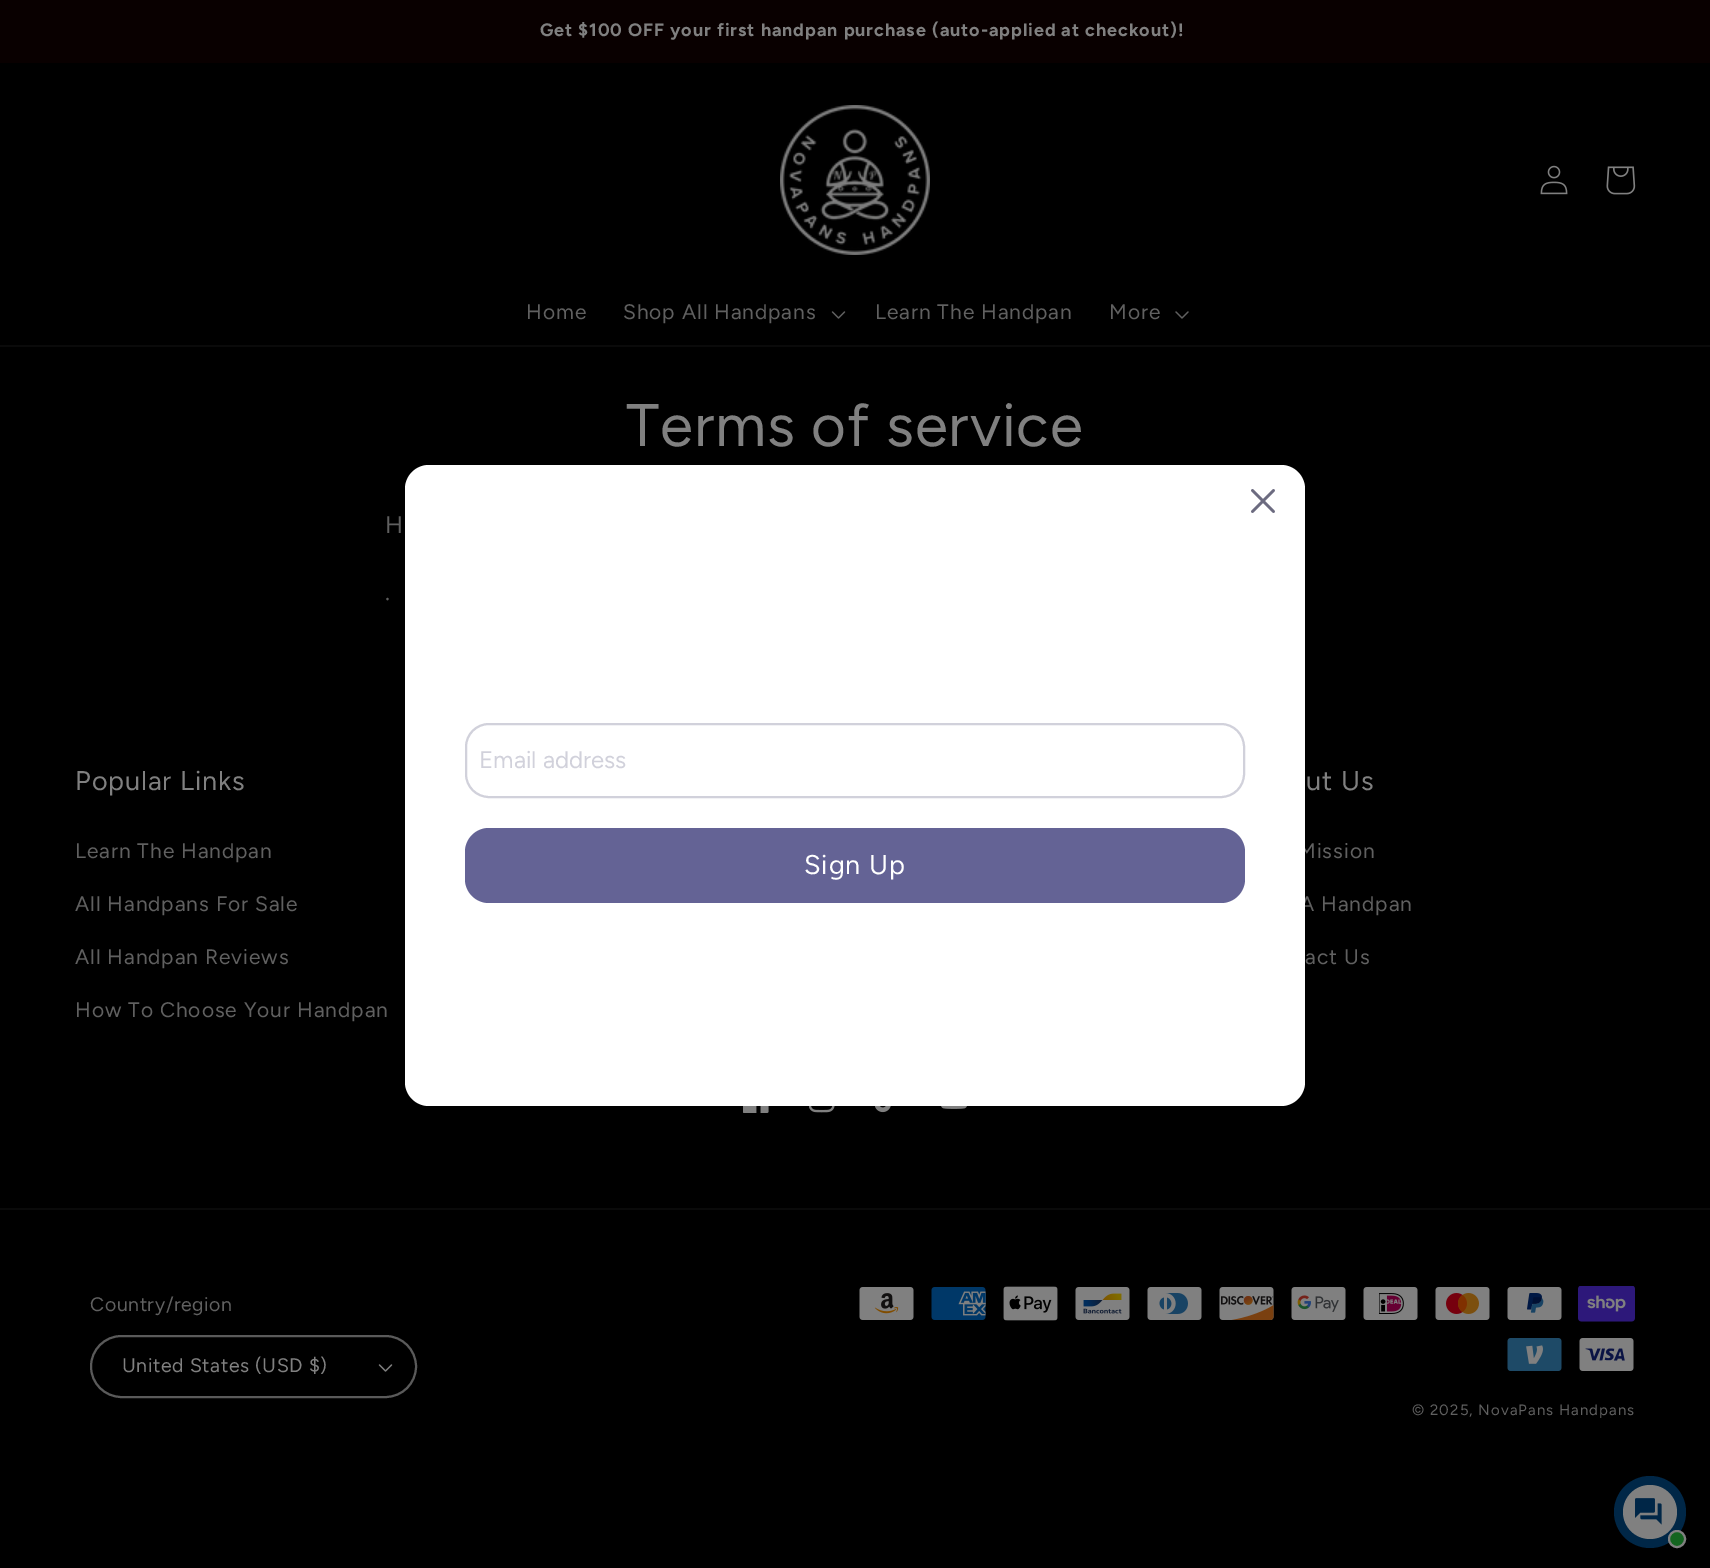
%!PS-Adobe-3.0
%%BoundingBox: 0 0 1710 1568
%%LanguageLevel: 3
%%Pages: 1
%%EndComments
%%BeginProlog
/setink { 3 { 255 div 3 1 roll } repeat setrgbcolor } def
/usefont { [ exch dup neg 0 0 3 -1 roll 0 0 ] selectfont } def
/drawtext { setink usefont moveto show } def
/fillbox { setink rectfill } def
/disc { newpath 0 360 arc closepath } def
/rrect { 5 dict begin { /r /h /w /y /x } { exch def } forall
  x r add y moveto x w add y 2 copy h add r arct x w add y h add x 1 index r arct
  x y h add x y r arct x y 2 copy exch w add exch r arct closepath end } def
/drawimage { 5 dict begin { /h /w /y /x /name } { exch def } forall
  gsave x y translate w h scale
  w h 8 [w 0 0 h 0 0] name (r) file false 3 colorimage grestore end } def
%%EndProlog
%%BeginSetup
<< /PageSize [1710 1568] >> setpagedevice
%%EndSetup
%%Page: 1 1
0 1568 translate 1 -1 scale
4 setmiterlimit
0 0 1710 1568 0 0 0 fillbox
0 0 1710 63 9 0 0 fillbox
/Figtree-Bold 18 usefont
128 128 128 setink
540 36 moveto 0.9 0 (Get $100 OFF your first handpan purchase \(auto-applied at checkout\)!) ashow
0 345 1710 2 10 10 10 fillbox
(assets/img1.rgb) 780 105 150 150 drawimage
(assets/img2.rgb) 1540 165 28 30 drawimage
(assets/img3.rgb) 1606 166 30 29 drawimage
/Figtree-Regular 21 usefont
96 96 96 setink
526 319 moveto 0.9 0 (Home) ashow
623 319 moveto 0.9 0 (Shop All Handpans) ashow
(assets/img4.rgb) 831 311 15 8 drawimage
875 319 moveto 0.9 0 (Learn The Handpan) ashow
1109 319 moveto 0.9 0 (More) ashow
(assets/img5.rgb) 1175 311 14 8 drawimage
/Figtree-Regular 60 usefont
128 128 128 setink
626 446 moveto 0.9 0 (Terms of service) ashow
/Figtree-Regular 24 usefont
96 96 96 setink
385 533 moveto 0.9 0 (H) ashow
385 600 moveto 0.9 0 (.) ashow
/Figtree-Regular 21 usefont
1298 858 moveto 0.9 0 (Mission) ashow
1300 911 moveto 0.9 0 (A Handpan) ashow
255 255 255 setink
405 465 900 641 24 rrect fill
(assets/img6.rgb) 1251 489 24 24 drawimage
209 209 219 setink
2 setlinewidth
466 724 778 73 23 rrect stroke
(Email address) 479 768 /Figtree-Regular 24 209 209 219 drawtext
100 99 149 setink
465 828 780 75 24 rrect fill
/Figtree-Regular 27 usefont
255 255 255 setink
804 874 moveto 0.9 0 (Sign Up) ashow
128 128 128 setink
75 790 moveto 0.9 0 (Popular Links) ashow
/Figtree-Regular 21 usefont
96 96 96 setink
75 858 moveto 0.9 0 (Learn The Handpan) ashow
75 911 moveto 0.9 0 (All Handpans For Sale) ashow
75 964 moveto 0.9 0 (All Handpan Reviews) ashow
75 1017 moveto 0.9 0 (How To Choose Your Handpan) ashow
/Figtree-Regular 27 usefont
128 128 128 setink
1306 790 moveto 0.9 0 (ut Us) ashow
/Figtree-Regular 21 usefont
96 96 96 setink
1305 964 moveto 0.9 0 (act Us) ashow
(assets/img7.rgb) 743 1106 26 7 drawimage
(assets/img8.rgb) 809 1106 26 7 drawimage
(assets/img9.rgb) 875 1106 16 7 drawimage
(assets/img10.rgb) 941 1106 26 3 drawimage
0 1208 1710 2 10 10 10 fillbox
/Figtree-Regular 19.5 usefont
96 96 96 setink
90 1311 moveto 0.6 0 (Country/region) ashow
(assets/img11.rgb) 378 1364 15 8 drawimage
90 90 90 setink
91 1336 325 61 30.5 rrect stroke
128 128 128 setink
122 1372 moveto 0.6 0 (United States \(USD $\)) ashow
(assets/img12.rgb) 859 1287 55 33 drawimage
(assets/img13.rgb) 931 1287 55 33 drawimage
(assets/img14.rgb) 1003 1286 55 35 drawimage
(assets/img15.rgb) 1075 1287 55 33 drawimage
(assets/img16.rgb) 1147 1287 55 33 drawimage
(assets/img17.rgb) 1219 1287 55 33 drawimage
(assets/img18.rgb) 1291 1287 55 33 drawimage
(assets/img19.rgb) 1363 1287 55 33 drawimage
(assets/img20.rgb) 1435 1287 55 33 drawimage
(assets/img21.rgb) 1507 1287 55 33 drawimage
(assets/img22.rgb) 1578 1286 57 36 drawimage
(assets/img23.rgb) 1507 1338 55 33 drawimage
(assets/img24.rgb) 1579 1338 55 33 drawimage
/Figtree-Regular 15 usefont
96 96 96 setink
1412 1415 moveto 1.05 0 (© 2025, NovaPans Handpans) ashow
0 39 71 setink
1650 1512 36 disc fill
128 128 128 setink
1650 1512 27 disc fill
(assets/img25.rgb) 1635 1498 27 27 drawimage
20 101 32 setink
1677 1539 8 disc gsave fill grestore
128 128 128 setink
stroke
showpage
%%EOF
